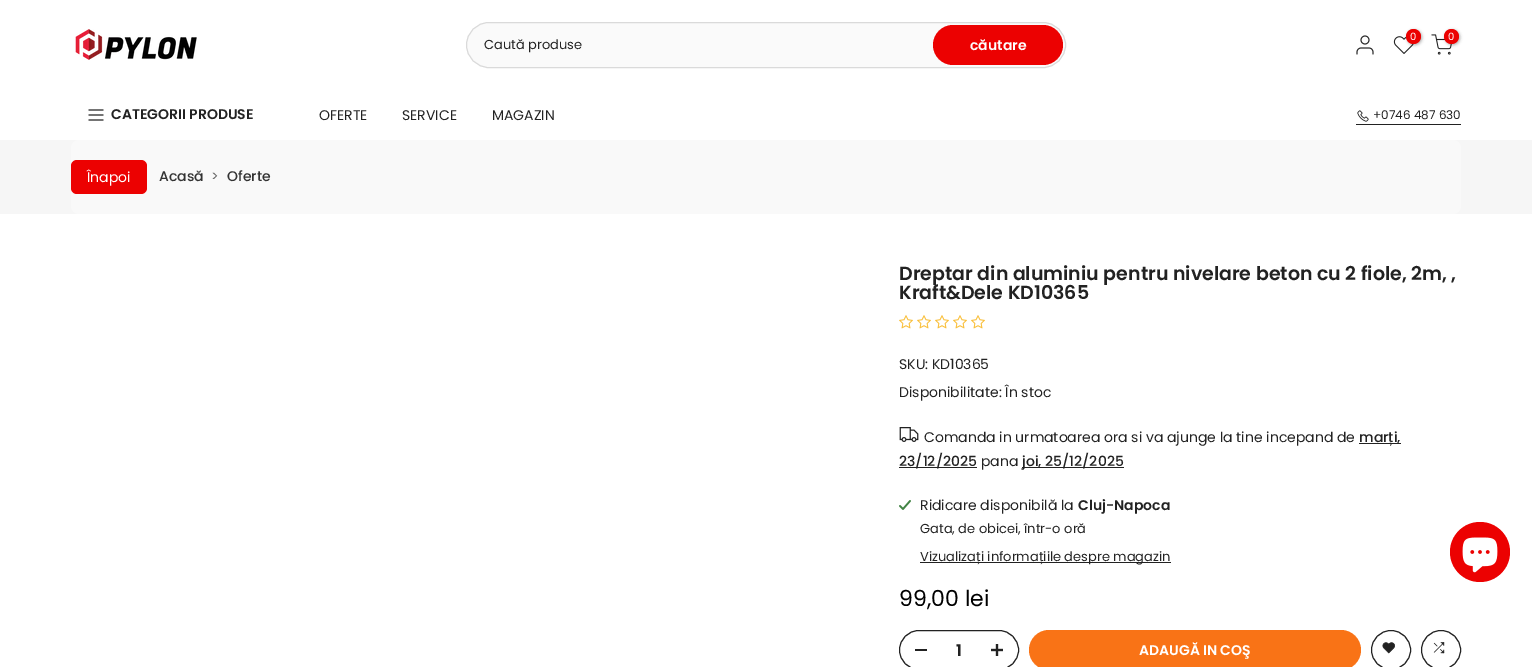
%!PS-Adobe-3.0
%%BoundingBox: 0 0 1532 667
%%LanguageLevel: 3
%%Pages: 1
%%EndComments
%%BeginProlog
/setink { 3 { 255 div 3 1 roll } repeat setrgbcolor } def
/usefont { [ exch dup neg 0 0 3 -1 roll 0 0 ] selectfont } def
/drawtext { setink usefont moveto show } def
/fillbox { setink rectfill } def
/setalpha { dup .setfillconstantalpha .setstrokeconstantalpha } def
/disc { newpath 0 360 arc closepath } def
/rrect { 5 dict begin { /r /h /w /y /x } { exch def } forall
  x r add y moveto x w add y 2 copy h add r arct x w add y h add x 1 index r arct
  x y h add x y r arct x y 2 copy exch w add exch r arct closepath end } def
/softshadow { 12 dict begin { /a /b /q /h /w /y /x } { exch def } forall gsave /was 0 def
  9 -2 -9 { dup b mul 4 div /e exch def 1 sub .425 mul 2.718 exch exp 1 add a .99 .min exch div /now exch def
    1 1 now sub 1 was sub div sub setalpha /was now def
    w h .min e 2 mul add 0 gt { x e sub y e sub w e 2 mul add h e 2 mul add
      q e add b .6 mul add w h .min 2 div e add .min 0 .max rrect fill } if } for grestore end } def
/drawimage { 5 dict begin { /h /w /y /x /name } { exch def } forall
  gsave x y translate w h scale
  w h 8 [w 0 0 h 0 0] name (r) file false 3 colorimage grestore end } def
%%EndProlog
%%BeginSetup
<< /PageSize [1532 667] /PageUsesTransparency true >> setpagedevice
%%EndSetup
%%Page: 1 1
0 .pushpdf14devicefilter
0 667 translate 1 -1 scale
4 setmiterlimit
0 0 1532 667 255 255 255 fillbox
(assets/img1.rgb) 75 29 122 31 drawimage
(assets/img2.rgb) 1356 35 18 20 drawimage
(assets/img3.rgb) 1393 36 21 18 drawimage
0 0 0 setink
1407 30 15 15 7.5 1.5 0.3 softshadow
236 1 1 setink
1413.5 36.5 7.5 disc fill
(0) 1410 40 /Poppins-Regular 10 255 255 255 drawtext
(assets/img4.rgb) 1431 34 21 21 drawimage
0 0 0 setink
1445 30 15 15 7.5 1.5 0.3 softshadow
236 1 1 setink
1451.5 36.5 7.5 disc fill
(0) 1448 40 /Poppins-Regular 10 255 255 255 drawtext
250 250 250 setink
466.5 22.5 599 45 22.5 rrect gsave fill grestore
218 218 218 setink
stroke
(Caută produse) 484 49 /Poppins-Regular 13 34 34 34 drawtext
236 1 1 setink
933 25 130 40 20 rrect fill
(căutare) 970 50 /Poppins-SemiBold 14 255 255 255 drawtext
(assets/img5.rgb) 88 109 16 12 drawimage
(CATEGORII PRODUSE) 111 119 /Poppins-SemiBold 14 34 34 34 drawtext
(OFERTE) 319 120 /Poppins-Regular 14 34 34 34 drawtext
(SERVICE) 402 120 /Poppins-Regular 14 34 34 34 drawtext
(MAGAZIN) 492 120 /Poppins-Regular 14 34 34 34 drawtext
1356 124 105 1 34 34 34 fillbox
(assets/img6.rgb) 1357 110 12 12 drawimage
(+0746 487 630) 1373 119 /Poppins-Regular 12 34 34 34 drawtext
0 140 1532 74 246 246 246 fillbox
249 249 249 setink
71 140 1390 74 8 rrect fill
236 1 1 setink
71 160 76 34 6 rrect fill
(Înapoi) 87 182 /Poppins-Regular 14 255 255 255 drawtext
(Acasă) 159 181 /Poppins-Medium 14 51 51 51 drawtext
(>) 211 181 /Poppins-Regular 14 102 102 102 drawtext
(Oferte) 227 181 /Poppins-Medium 14 51 51 51 drawtext
(Dreptar din aluminiu pentru nivelare beton cu 2 fiole, 2m, ,) 899 280 /Poppins-SemiBold 19 34 34 34 drawtext
(Kraft&Dele KD10365) 899 299 /Poppins-SemiBold 19 34 34 34 drawtext
(assets/img7.rgb) 899 315 14 14 drawimage
(assets/img7.rgb) 917 315 14 14 drawimage
(assets/img7.rgb) 935 315 14 14 drawimage
(assets/img7.rgb) 953 315 14 14 drawimage
(assets/img7.rgb) 971 315 14 14 drawimage
(SKU: KD10365) 899 369 /Poppins-Regular 14 34 34 34 drawtext
(Disponibilitate: În stoc) 899 397 /Poppins-Regular 14 34 34 34 drawtext
(assets/img8.rgb) 899 427 20 15 drawimage
(Comanda in urmatoarea ora si va ajunge la tine incepand de) 924 442 /Poppins-Regular 14 34 34 34 drawtext
1359 443 42 1 34 34 34 fillbox
(marți,) 1359 442 /Poppins-Medium 14 34 34 34 drawtext
899 467 78 1 34 34 34 fillbox
(23/12/2025) 899 466 /Poppins-Medium 14 34 34 34 drawtext
(pana) 981 466 /Poppins-Regular 14 34 34 34 drawtext
1022 467 102 1 34 34 34 fillbox
(joi, 25/12/2025) 1022 466 /Poppins-Medium 14 34 34 34 drawtext
(assets/img9.rgb) 899 500 12 10 drawimage
(Ridicare disponibilă la) 920 510 /Poppins-Regular 14 34 34 34 drawtext
(Cluj-Napoca) 1078 510 /Poppins-SemiBold 14 34 34 34 drawtext
(Gata, de obicei, într-o oră) 920 533 /Poppins-Regular 13 34 34 34 drawtext
920 562 251 1 34 34 34 fillbox
(Vizualizați informațiile despre magazin) 920 561 /Poppins-Regular 13 34 34 34 drawtext
(99,00 lei) 899 606 /Poppins-Regular 22 0 0 0 drawtext
34 34 34 setink
899.5 630.5 119 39 19.5 rrect stroke
915 649 12 2 34 34 34 fillbox
(1) 956 656 /Poppins-SemiBold 16 34 34 34 drawtext
(assets/img10.rgb) 991 644 12 12 drawimage
249 115 22 setink
1029 630 332 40 20 rrect fill
(ADAUGĂ IN COŞ) 1139 655 /Poppins-SemiBold 14 255 255 255 drawtext
34 34 34 setink
1391 650 19.5 disc stroke
(assets/img11.rgb) 1382 642 13 12 drawimage
1441 650 19.5 disc stroke
(assets/img12.rgb) 1433 642 12 12 drawimage
236 1 1 setink
1480 552 30 disc fill
(assets/img13.rgb) 1462 537 36 36 drawimage
.poppdf14devicefilter showpage
%%EOF
